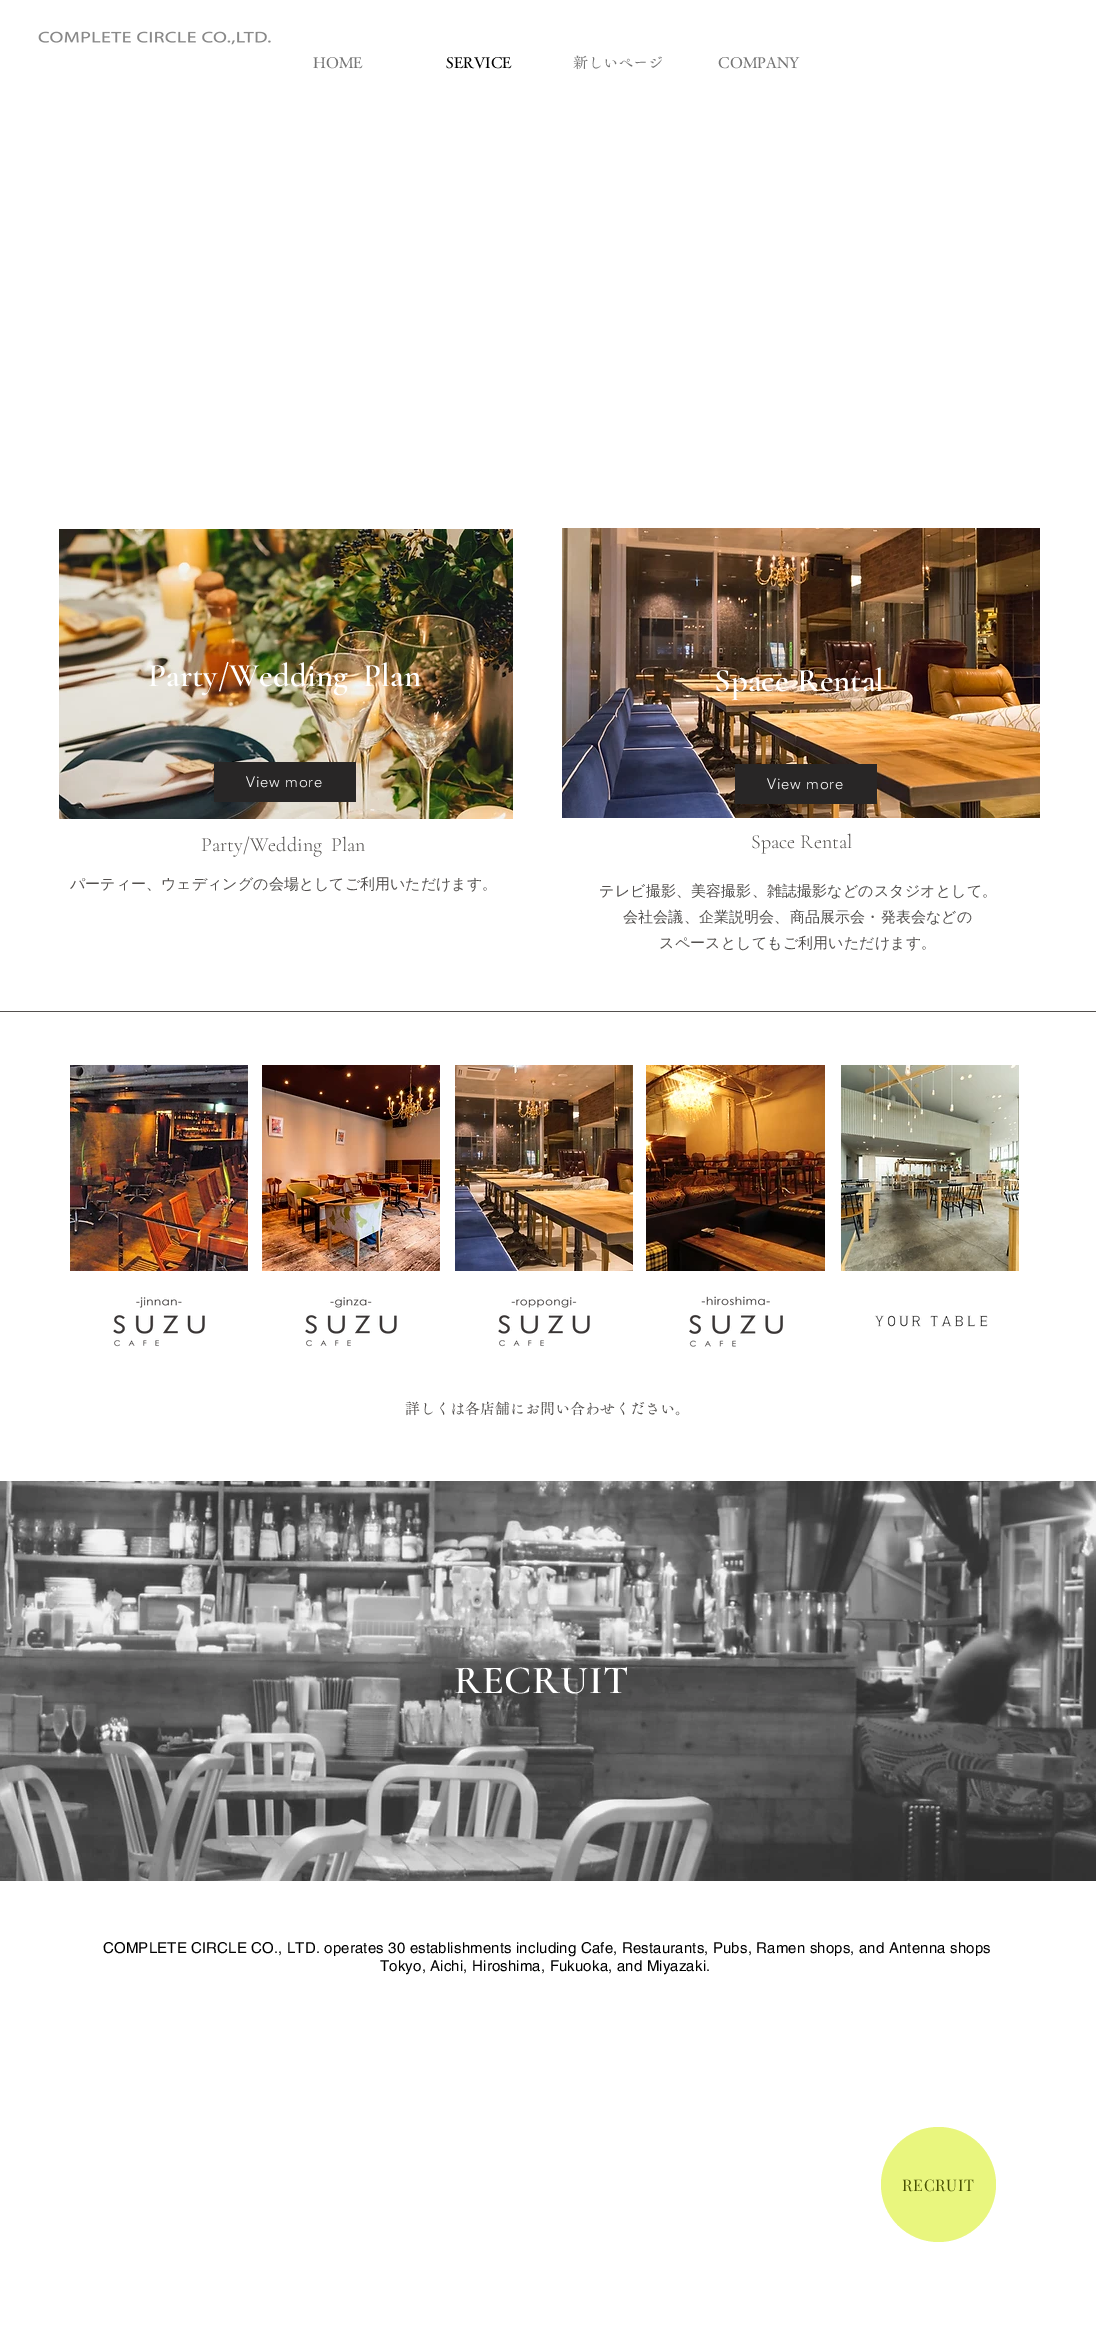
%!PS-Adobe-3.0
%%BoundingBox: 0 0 1096 2342
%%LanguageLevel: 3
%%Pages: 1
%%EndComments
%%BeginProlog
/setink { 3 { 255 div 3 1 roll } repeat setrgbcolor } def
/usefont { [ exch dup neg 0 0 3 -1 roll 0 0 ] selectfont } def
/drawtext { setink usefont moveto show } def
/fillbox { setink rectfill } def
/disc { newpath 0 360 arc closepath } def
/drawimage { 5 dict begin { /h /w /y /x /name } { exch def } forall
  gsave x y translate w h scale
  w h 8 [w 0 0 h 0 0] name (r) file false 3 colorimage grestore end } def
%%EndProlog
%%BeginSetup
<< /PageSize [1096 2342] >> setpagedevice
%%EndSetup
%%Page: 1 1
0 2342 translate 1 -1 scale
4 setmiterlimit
0 0 1096 2342 255 255 255 fillbox
(assets/img1.rgb) 38 31 233 14 drawimage
(HOME) 313 68 /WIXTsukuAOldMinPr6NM-Medium 15 117 117 117 drawtext
(SERVICE) 446 68 /WIXTsukuAOldMinPr6NM-Medium 15 0 0 0 drawtext
(新しいページ) 573 68 /WIXTsukuAOldMinPr6NM-Medium 15 117 117 117 drawtext
(COMPANY) 718 68 /WIXTsukuAOldMinPr6NM-Medium 15 117 117 117 drawtext
(assets/img2.rgb) 59 529 454 290 drawimage
(assets/img3.rgb) 562 528 478 290 drawimage
(Party/Wedding  Plan) 148 686 /CormorantGaramond-SemiBold 33 255 255 255 drawtext
(Space Rental) 714 691 /CormorantGaramond-SemiBold 33 255 255 255 drawtext
214 762 142 40 40 38 38 fillbox
/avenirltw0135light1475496-Light 15 usefont
255 255 255 setink
246 787 moveto 0.75 0 (View more) ashow
735 764 142 40 40 38 38 fillbox
255 255 255 setink
767 789 moveto 0.75 0 (View more) ashow
(Party/Wedding  Plan) 201 851 /CormorantGaramond-Light 20 83 80 78 drawtext
(パーティー、ウェディングの会場としてご利用いただけます。) 70 889 /WenQuanYiZenHei-Medium 15 83 80 78 drawtext
(Space Rental) 751 848 /CormorantGaramond-Light 20 83 80 78 drawtext
/WenQuanYiZenHei-Medium 15 usefont
599 896 moveto 0.15 0 (テレビ撮影、美容撮影、雑誌撮影などのスタジオとして。) ashow
623 922 moveto 0.15 0 (会社会議、企業説明会、商品展示会・発表会などの) ashow
659 948 moveto 0.15 0 (スペースとしてもご利用いただけます。) ashow
0 1011 1096 1 83 80 78 fillbox
(assets/img4.rgb) 70 1065 178 206 drawimage
(assets/img5.rgb) 262 1065 178 206 drawimage
(assets/img6.rgb) 455 1065 178 206 drawimage
(assets/img7.rgb) 646 1065 179 206 drawimage
(assets/img8.rgb) 841 1065 178 206 drawimage
(assets/img9.rgb) 113 1297 92 50 drawimage
(assets/img10.rgb) 305 1297 92 50 drawimage
(assets/img11.rgb) 498 1297 92 50 drawimage
(assets/img12.rgb) 689 1296 94 51 drawimage
(assets/img13.rgb) 874 1315 114 12 drawimage
(詳しくは各店舗にお問い合わせください。) 405 1414 /WIXTsukuAOldMinPr6NM-Medium 15 83 80 78 drawtext
(assets/img14.rgb) 0 1481 1096 400 drawimage
/CormorantGaramond-SemiBold 40 usefont
255 255 255 setink
454 1693 moveto 0.5 0 (RECRUIT) ashow
/helvetica-Regular 15 usefont
0 0 0 setink
103 1953 moveto 0.15 0 (COMPLETE CIRCLE CO., LTD. operates 30 establishments including Cafe, Restaurants, Pubs, Ramen shops, and Antenna shops) ashow
380 1971 moveto 0.15 0 (Tokyo, Aichi, Hiroshima, Fukuoka, and Miyazaki.) ashow
233 246 126 setink
938.5 2184.5 57.5 disc fill
/PlayfairDisplay-Regular 16 usefont
72 81 2 setink
902 2191 moveto 0.75 0 (RECRUIT) ashow
showpage
%%EOF
